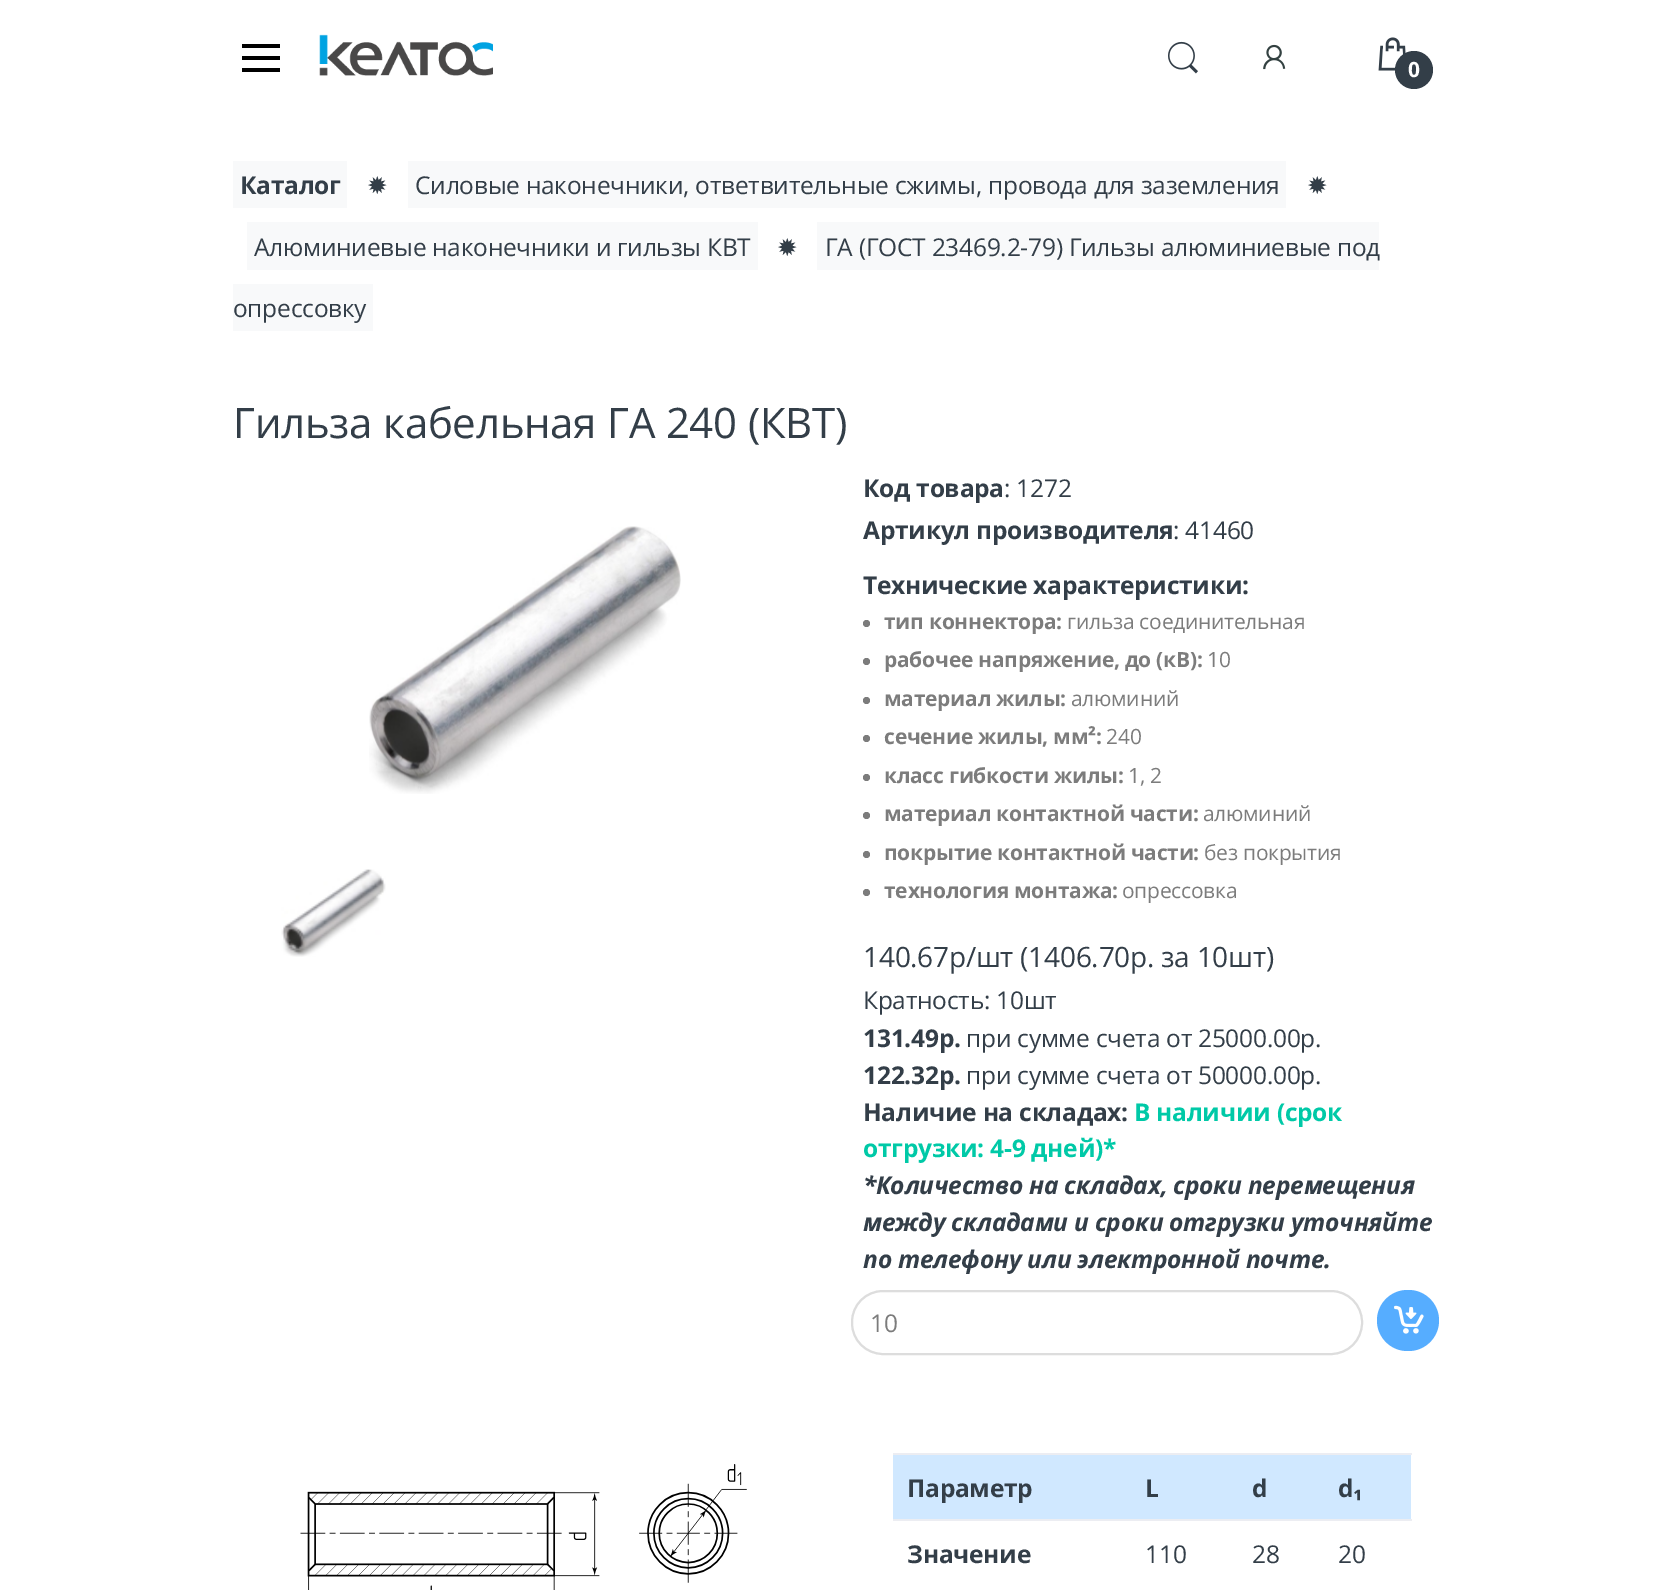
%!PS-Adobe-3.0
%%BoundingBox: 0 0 1672 1590
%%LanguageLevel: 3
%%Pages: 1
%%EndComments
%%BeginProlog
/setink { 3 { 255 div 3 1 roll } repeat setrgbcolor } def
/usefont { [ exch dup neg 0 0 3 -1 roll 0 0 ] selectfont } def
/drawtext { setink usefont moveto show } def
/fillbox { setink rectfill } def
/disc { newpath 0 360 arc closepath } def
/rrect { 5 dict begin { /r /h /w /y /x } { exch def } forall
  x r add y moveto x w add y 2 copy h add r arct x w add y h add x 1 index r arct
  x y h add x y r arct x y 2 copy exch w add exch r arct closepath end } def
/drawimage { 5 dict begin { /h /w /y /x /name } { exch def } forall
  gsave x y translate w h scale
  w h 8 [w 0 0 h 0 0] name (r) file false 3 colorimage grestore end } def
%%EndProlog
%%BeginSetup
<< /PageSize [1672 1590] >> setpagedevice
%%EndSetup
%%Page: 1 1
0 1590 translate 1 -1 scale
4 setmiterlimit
0 0 1672 1590 255 255 255 fillbox
242 44 38 4 0 0 0 fillbox
242 56 38 4 0 0 0 fillbox
242 68 38 4 0 0 0 fillbox
(assets/img1.rgb) 319 34 174 42 drawimage
(assets/img2.rgb) 1168 41 30 33 drawimage
(assets/img3.rgb) 1263 44 23 26 drawimage
(assets/img4.rgb) 1378 37 28 34 drawimage
51 62 72 setink
1414 70 19 disc fill
(0) 1408 77 /OpenSans-Bold 21 255 255 255 drawtext
233 161 114 47 248 249 250 fillbox
/OpenSans-Bold 24.5 usefont
51 62 72 setink
240 194 moveto -0.25 0 (Каталог) ashow
/DejaVuSans-Regular 24.5 usefont
367 194 moveto -0.25 0 (✹) ashow
408 161 878 47 248 249 250 fillbox
/OpenSans-Regular 24.5 usefont
51 62 72 setink
415 194 moveto -0.25 0 (Силовые наконечники, ответвительные сжимы, провода для заземления) ashow
/DejaVuSans-Regular 24.5 usefont
1307 194 moveto -0.25 0 (✹) ashow
247 222 511 48 248 249 250 fillbox
/OpenSans-Regular 24.5 usefont
51 62 72 setink
254 256 moveto -0.25 0 (Алюминиевые наконечники и гильзы КВТ) ashow
/DejaVuSans-Regular 24.5 usefont
777 256 moveto -0.25 0 (✹) ashow
817 222 562 48 248 249 250 fillbox
/OpenSans-Regular 24.5 usefont
51 62 72 setink
825 256 moveto -0.25 0 (ГА \(ГОСТ 23469.2-79\) Гильзы алюминиевые под) ashow
233 284 140 47 248 249 250 fillbox
51 62 72 setink
233 317 moveto -0.25 0 (опрессовку) ashow
/OpenSans-Regular 42 usefont
233 438 moveto -0.25 0 (Гильза кабельная ГА 240 \(КВТ\)) ashow
(assets/img5.rgb) 369 526 312 268 drawimage
(assets/img6.rgb) 281 869 105 88 drawimage
/OpenSans-Bold 24.5 usefont
863 497 moveto -0.25 0 (Код товара) ashow
/OpenSans-Regular 24.5 usefont
1004 497 moveto -0.25 0 (: 1272) ashow
/OpenSans-Bold 24.5 usefont
863 539 moveto -0.25 0 (Артикул производителя) ashow
/OpenSans-Regular 24.5 usefont
1173 539 moveto -0.25 0 (: 41460) ashow
/OpenSans-Bold 24.5 usefont
863 594 moveto -0.25 0 (Технические характеристики:) ashow
124 124 124 setink
866.5 623.5 3.5 disc fill
/OpenSans-Bold 21 usefont
884 629 moveto -0.25 0 (тип коннектора:) ashow
/OpenSans-Regular 21 usefont
1067 629 moveto -0.25 0 (гильза соединительная) ashow
866.5 661.5 3.5 disc fill
/OpenSans-Bold 21 usefont
884 667 moveto -0.25 0 (рабочее напряжение, до \(кВ\):) ashow
/OpenSans-Regular 21 usefont
1207 667 moveto -0.25 0 (10) ashow
866.5 700.5 3.5 disc fill
/OpenSans-Bold 21 usefont
884 706 moveto -0.25 0 (материал жилы:) ashow
/OpenSans-Regular 21 usefont
1071 706 moveto -0.25 0 (алюминий) ashow
866.5 738.5 3.5 disc fill
/OpenSans-Bold 21 usefont
884 744 moveto -0.25 0 (сечение жилы, мм²:) ashow
/OpenSans-Regular 21 usefont
1106 744 moveto -0.25 0 (240) ashow
866.5 777.5 3.5 disc fill
/OpenSans-Bold 21 usefont
884 783 moveto -0.25 0 (класс гибкости жилы:) ashow
/OpenSans-Regular 21 usefont
1128 783 moveto -0.25 0 (1, 2) ashow
866.5 815.5 3.5 disc fill
/OpenSans-Bold 21 usefont
884 821 moveto -0.25 0 (материал контактной части:) ashow
/OpenSans-Regular 21 usefont
1203 821 moveto -0.25 0 (алюминий) ashow
866.5 854.5 3.5 disc fill
/OpenSans-Bold 21 usefont
884 860 moveto -0.25 0 (покрытие контактной части:) ashow
/OpenSans-Regular 21 usefont
1204 860 moveto -0.25 0 (без покрытия) ashow
866.5 892.5 3.5 disc fill
/OpenSans-Bold 21 usefont
884 898 moveto -0.25 0 (технология монтажа:) ashow
/OpenSans-Regular 21 usefont
1122 898 moveto -0.25 0 (опрессовка) ashow
/OpenSans-Regular 28 usefont
51 62 72 setink
863 967 moveto -0.25 0 (140.67р/шт \(1406.70р. за 10шт\)) ashow
/OpenSans-Regular 24.5 usefont
863 1009 moveto -0.25 0 (Кратность: 10шт) ashow
/OpenSans-Bold 24.5 usefont
863 1047 moveto -0.25 0 (131.49р.) ashow
/OpenSans-Regular 24.5 usefont
966 1047 moveto -0.25 0 (при сумме счета от 25000.00р.) ashow
/OpenSans-Bold 24.5 usefont
863 1084 moveto -0.25 0 (122.32р.) ashow
/OpenSans-Regular 24.5 usefont
966 1084 moveto -0.25 0 (при сумме счета от 50000.00р.) ashow
/OpenSans-Bold 24.5 usefont
863 1121 moveto -0.25 0 (Наличие на складах:) ashow
0 201 167 setink
1134 1121 moveto -0.25 0 (В наличии \(срок) ashow
863 1157 moveto -0.25 0 (отгрузки: 4-9 дней\)*) ashow
/OpenSans-BoldItalic 24.5 usefont
51 62 72 setink
863 1194 moveto -0.25 0 (*Количество на складах, сроки перемещения) ashow
863 1231 moveto -0.25 0 (между складами и сроки отгрузки уточняйте) ashow
863 1268 moveto -0.25 0 (по телефону или электронной почте.) ashow
221 221 221 setink
2 setlinewidth
852 1291 510 63 31 rrect stroke
(10) 870 1332 /OpenSans-Regular 24.5 124 124 124 drawtext
86 173 255 setink
1377 1290 62 61 30.5 rrect fill
(assets/img7.rgb) 1394 1305 30 29 drawimage
(assets/img8.rgb) 300 1464 447 126 drawimage
893 1455 518 64 208 232 255 fillbox
/OpenSans-Bold 24.5 usefont
51 62 72 setink
907 1497 moveto -0.25 0 (Параметр) ashow
1145 1497 moveto -0.25 0 (L) ashow
1252 1497 moveto -0.25 0 (d) ashow
893 1453 519 2 236 237 242 fillbox
51 62 72 setink
1338 1497 moveto -0.25 0 (d₁) ashow
907 1563 moveto -0.25 0 (Значение) ashow
/OpenSans-Regular 24.5 usefont
1145 1563 moveto -0.25 0 (110) ashow
1252 1563 moveto -0.25 0 (28) ashow
893 1519 519 2 236 237 242 fillbox
51 62 72 setink
1338 1563 moveto -0.25 0 (20) ashow
showpage
%%EOF
